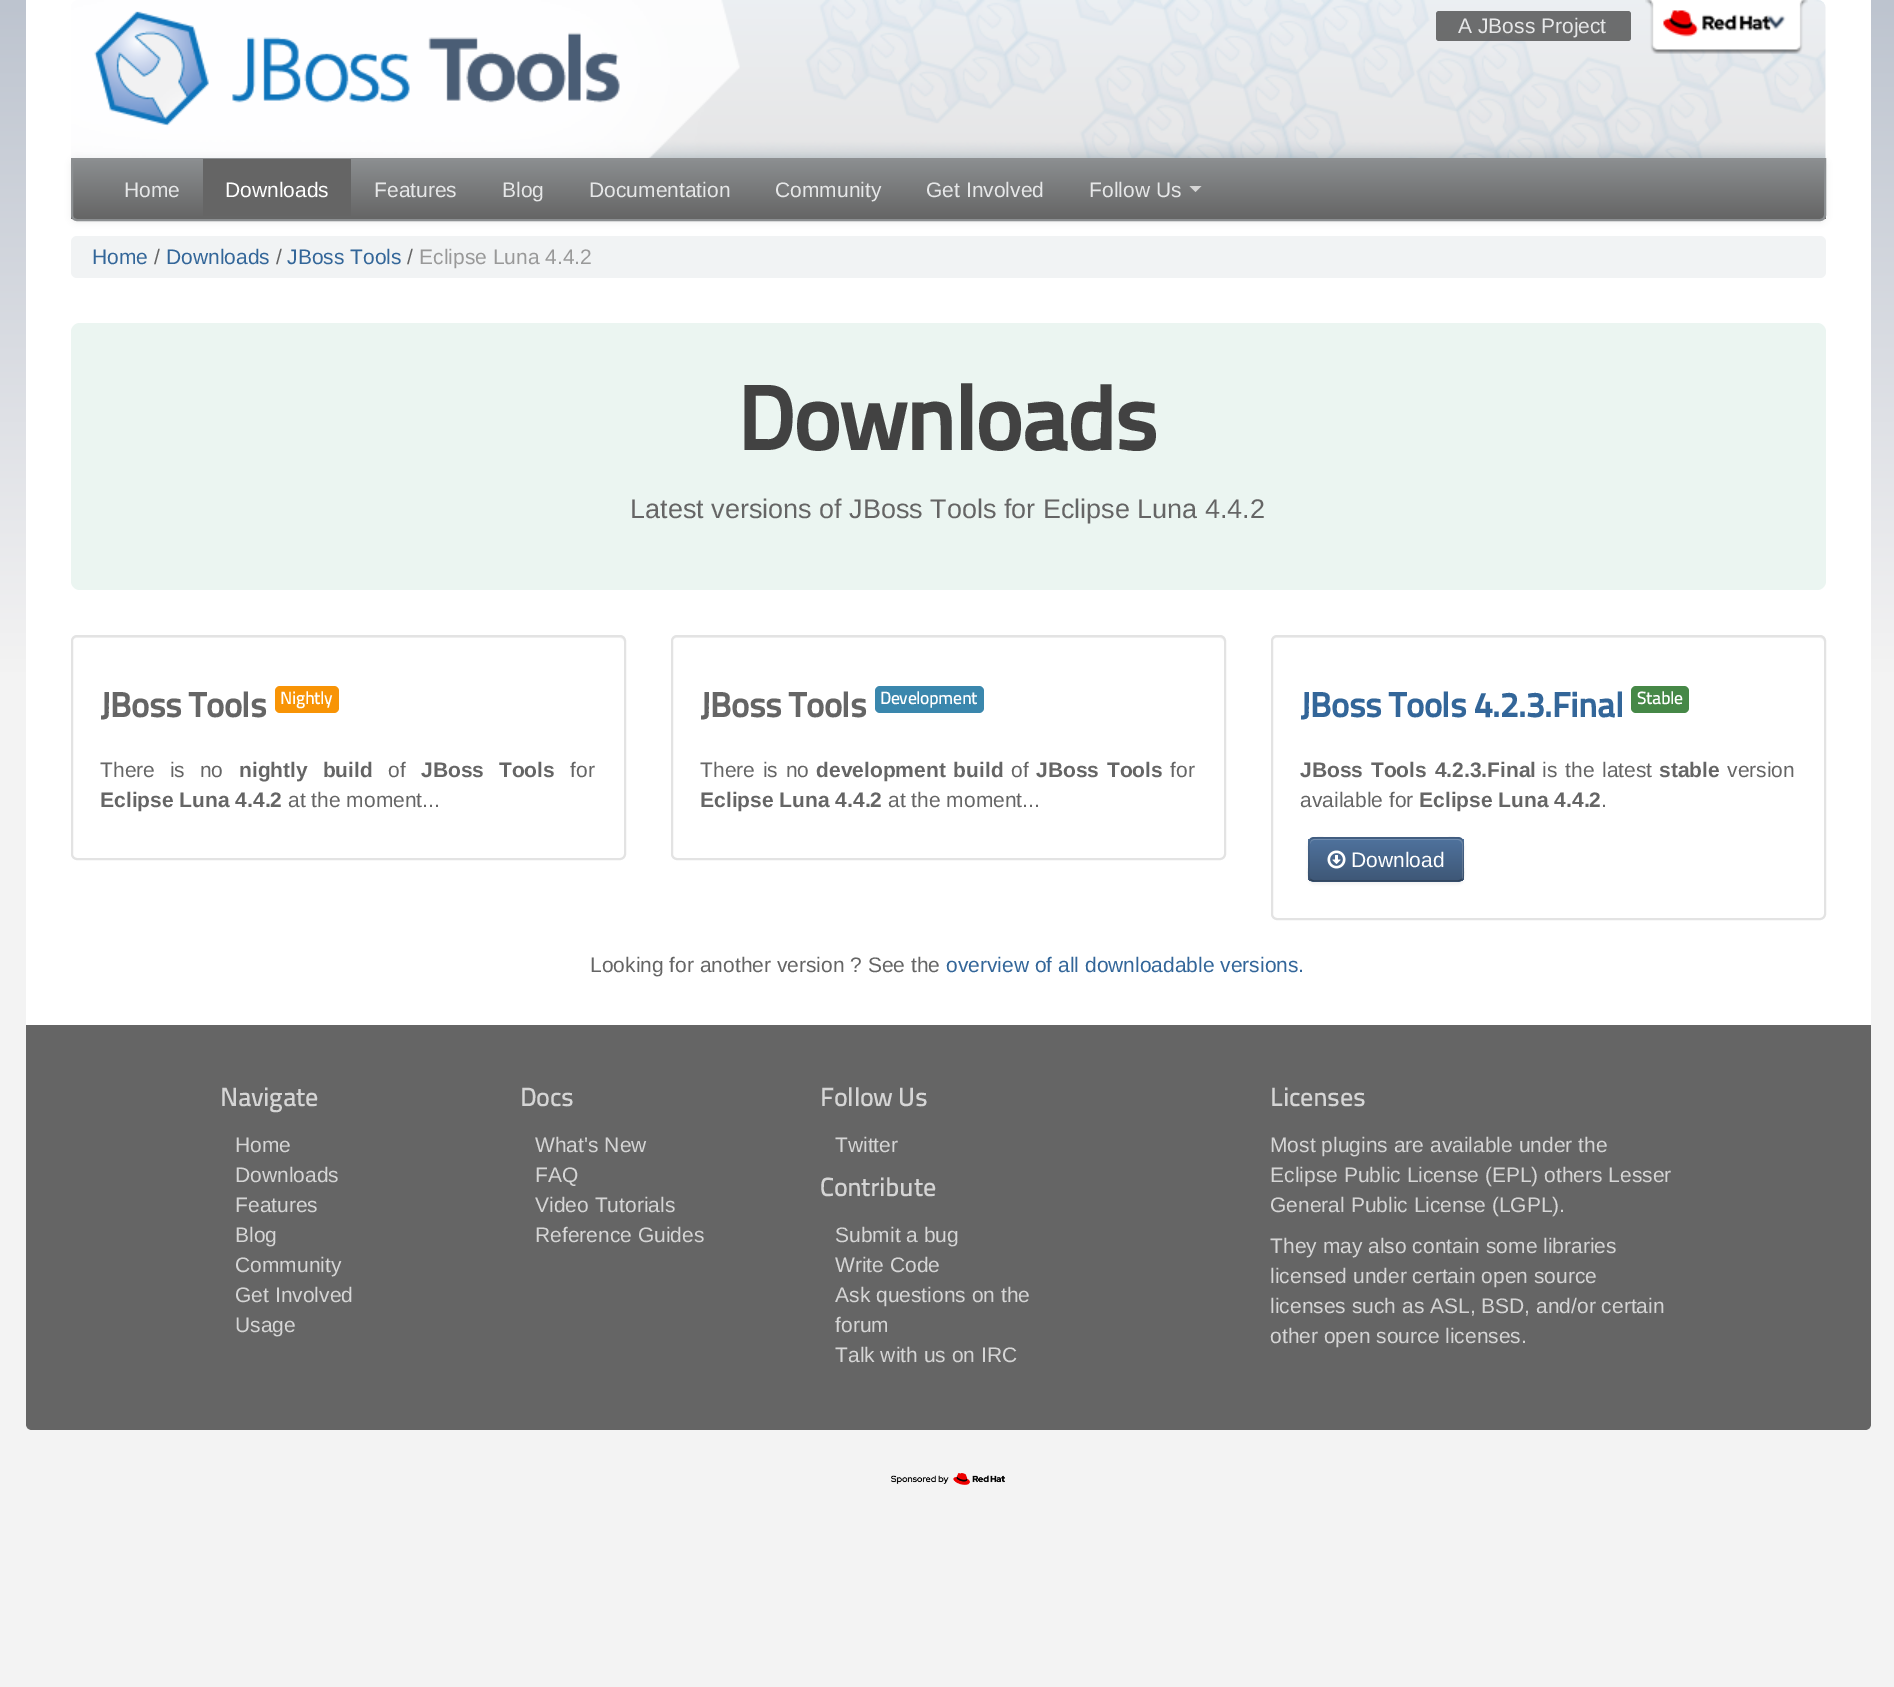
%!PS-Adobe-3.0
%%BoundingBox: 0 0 1894 1687
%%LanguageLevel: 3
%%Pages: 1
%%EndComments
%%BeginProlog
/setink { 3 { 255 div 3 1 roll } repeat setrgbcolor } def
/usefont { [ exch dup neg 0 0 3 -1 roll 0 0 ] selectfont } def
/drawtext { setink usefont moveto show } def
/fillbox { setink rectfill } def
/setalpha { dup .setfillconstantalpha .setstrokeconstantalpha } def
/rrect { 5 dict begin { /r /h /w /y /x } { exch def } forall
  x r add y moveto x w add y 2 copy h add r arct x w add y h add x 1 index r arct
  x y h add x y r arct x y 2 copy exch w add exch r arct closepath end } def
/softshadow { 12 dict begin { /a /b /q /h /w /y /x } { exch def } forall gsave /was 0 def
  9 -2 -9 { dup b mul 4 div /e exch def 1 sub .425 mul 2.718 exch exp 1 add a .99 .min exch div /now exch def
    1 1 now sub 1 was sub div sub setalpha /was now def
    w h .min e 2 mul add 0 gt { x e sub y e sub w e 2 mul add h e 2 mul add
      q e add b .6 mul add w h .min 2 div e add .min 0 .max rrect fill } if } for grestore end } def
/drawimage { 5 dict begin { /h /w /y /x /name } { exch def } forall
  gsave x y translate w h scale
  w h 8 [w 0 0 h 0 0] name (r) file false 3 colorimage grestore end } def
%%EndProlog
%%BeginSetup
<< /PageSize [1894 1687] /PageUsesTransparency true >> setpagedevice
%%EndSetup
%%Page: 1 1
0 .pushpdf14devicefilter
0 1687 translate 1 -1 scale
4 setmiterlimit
0 0 1894 1687 255 255 255 fillbox
gsave 0 0 moveto 1894 0 lineto 1894 1687 lineto 0 1687 lineto closepath clip newpath
<< /ShadingType 2 /ColorSpace /DeviceRGB /Coords [947 0 947 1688] /Extend [true true] /Function << /FunctionType 3 /Domain [0 1] /Functions [<< /FunctionType 2 /Domain [0 1] /C0 [0.741 0.769 0.812] /C1 [0.953 0.953 0.953] /N 1 >> << /FunctionType 2 /Domain [0 1] /C0 [0.953 0.953 0.953] /C1 [0.953 0.953 0.953] /N 1 >>] /Bounds [0.4] /Encode [0 1 0 1] >> >> shfill grestore
26 0 1845 1025 255 255 255 fillbox
(assets/img1.rgb) 71 0 1755 158 drawimage
(assets/img2.rgb) 1645 0 163 54 drawimage
0.75 setalpha
66 66 66 setink
1436 11 195 30 3 rrect fill
1 setalpha
(A JBoss Project) 1458 33 /LiberationSans-Regular 21 230 231 232 drawtext
(assets/img3.rgb) 1766 15 20 15 drawimage
0 0 0 setink
71 159 1755 63 6 3 0.07 softshadow
gsave
71 158 moveto 1826 158 lineto 1826 215 lineto 1826 218.5 1823.5 221 1820 221 curveto 77 221 lineto 73.5 221 71 218.5 71 215 curveto closepath clip newpath
gsave 71 160 moveto 1826 160 lineto 1826 219 lineto 71 219 lineto closepath clip newpath
<< /ShadingType 2 /ColorSpace /DeviceRGB /Coords [948 159 948 219] /Extend [true true] /Function << /FunctionType 2 /Domain [0 1] /C0 [0.549 0.561 0.569] /C1 [0.396 0.396 0.396] /N 1 >> >> shfill grestore
grestore
140 143 145 setink
2 setlinewidth
72 159 moveto 1825 159 lineto 1825 215 lineto 1825 218 1823 220 1820 220 curveto 77 220 lineto 74 220 72 218 72 215 curveto closepath stroke
(Home) 124 197 /LiberationSans-Regular 21 230 231 232 drawtext
203 159 148 57 101 101 101 fillbox
(Downloads) 225 197 /LiberationSans-Regular 21 255 255 255 drawtext
(Features) 374 197 /LiberationSans-Regular 21 230 231 232 drawtext
(Blog) 502 197 /LiberationSans-Regular 21 230 231 232 drawtext
(Documentation) 589 197 /LiberationSans-Regular 21 230 231 232 drawtext
(Community) 775 197 /LiberationSans-Regular 21 230 231 232 drawtext
(Get Involved) 926 197 /LiberationSans-Regular 21 230 231 232 drawtext
(Follow Us) 1089 197 /LiberationSans-Regular 21 230 231 232 drawtext
213 213 213 setink
1189.5 186 moveto 1201.5 186 lineto 1195.5 192 lineto closepath fill
241 243 244 setink
71 236 1755 42 6 rrect fill
(Home) 92 264 /LiberationSans-Regular 21 51 102 153 drawtext
(/) 154 264 /LiberationSans-Regular 21 101 101 101 drawtext
(Downloads) 166 264 /LiberationSans-Regular 21 51 102 153 drawtext
(/) 276 264 /LiberationSans-Regular 21 101 101 101 drawtext
(JBoss Tools) 287 264 /LiberationSans-Regular 21 51 102 153 drawtext
(/) 407 264 /LiberationSans-Regular 21 101 101 101 drawtext
(Eclipse Luna 4.4.2) 419 264 /LiberationSans-Regular 21 153 153 153 drawtext
235 245 241 setink
71 323 1755 267 9 rrect fill
/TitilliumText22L-Bold 90 usefont
66 66 66 setink
737 450 moveto -1.5 0 (Downloads) ashow
(Latest versions of JBoss Tools for Eclipse Luna 4.4.2) 630 518 /LiberationSans-Regular 27 101 101 101 drawtext
242 242 242 setink
76 638 moveto 620 638 lineto 622 638 624 640 624 642 curveto 624 639 622 636 619 636 curveto 77 636 lineto 74 636 72 639 72 642 curveto 72 640 74 638 76 638 curveto closepath fill
227 227 227 setink
72 636 553 223 5 rrect stroke
/TitilliumText22L-Bold 34.5 usefont
101 101 101 setink
100 717 moveto -0.4 0 (JBoss Tools) ashow
248 148 6 setink
275 686 64 27 5 rrect fill
/TitilliumText22L-Medium 17.75 usefont
255 255 255 setink
280 704 moveto -0.4 0 (Nightly) ashow
/LiberationSans-Regular 21 usefont
101 101 101 setink
100 777 moveto 9 0 32 (There is no) widthshow
/LiberationSans-Bold 21 usefont
239 777 moveto 9 0 32 (nightly build) widthshow
(of) 388 777 /LiberationSans-Regular 21 101 101 101 drawtext
/LiberationSans-Bold 21 usefont
421 777 moveto 9 0 32 (JBoss Tools) widthshow
(for) 570 777 /LiberationSans-Regular 21 101 101 101 drawtext
(Eclipse Luna 4.4.2) 100 807 /LiberationSans-Bold 21 101 101 101 drawtext
(at the moment...) 288 807 /LiberationSans-Regular 21 101 101 101 drawtext
242 242 242 setink
676 638 moveto 1220 638 lineto 1222 638 1224 640 1224 642 curveto 1224 639 1222 636 1219 636 curveto 677 636 lineto 674 636 672 639 672 642 curveto 672 640 674 638 676 638 curveto closepath fill
227 227 227 setink
672 636 553 223 5 rrect stroke
/TitilliumText22L-Bold 34.5 usefont
101 101 101 setink
700 717 moveto -0.4 0 (JBoss Tools) ashow
58 135 173 setink
875 686 109 27 5 rrect fill
/TitilliumText22L-Medium 17.75 usefont
255 255 255 setink
880 704 moveto -0.4 0 (Development) ashow
/LiberationSans-Regular 21 usefont
101 101 101 setink
700 777 moveto 2 0 32 (There is no) widthshow
/LiberationSans-Bold 21 usefont
816 777 moveto 2 0 32 (development build) widthshow
(of) 1011 777 /LiberationSans-Regular 21 101 101 101 drawtext
/LiberationSans-Bold 21 usefont
1036 777 moveto 2 0 32 (JBoss Tools) widthshow
(for) 1170 777 /LiberationSans-Regular 21 101 101 101 drawtext
(Eclipse Luna 4.4.2) 700 807 /LiberationSans-Bold 21 101 101 101 drawtext
(at the moment...) 888 807 /LiberationSans-Regular 21 101 101 101 drawtext
242 242 242 setink
1276 638 moveto 1820 638 lineto 1822 638 1824 640 1824 642 curveto 1824 639 1822 636 1819 636 curveto 1277 636 lineto 1274 636 1272 639 1272 642 curveto 1272 640 1274 638 1276 638 curveto closepath fill
227 227 227 setink
1272 636 553 283 5 rrect stroke
/TitilliumText22L-Bold 34.5 usefont
51 102 153 setink
1300 717 moveto -0.4 0 (JBoss Tools 4.2.3.Final) ashow
70 136 71 setink
1631 686 58 27 5 rrect fill
/TitilliumText22L-Medium 17.75 usefont
255 255 255 setink
1637 704 moveto -0.4 0 (Stable) ashow
/LiberationSans-Bold 21 usefont
101 101 101 setink
1300 777 moveto 2 0 32 (JBoss Tools 4.2.3.Final) widthshow
/LiberationSans-Regular 21 usefont
1542 777 moveto 2 0 32 (is the latest) widthshow
(stable) 1659 777 /LiberationSans-Bold 21 101 101 101 drawtext
(version) 1727 777 /LiberationSans-Regular 21 101 101 101 drawtext
(available for) 1300 807 /LiberationSans-Regular 21 101 101 101 drawtext
(Eclipse Luna 4.4.2) 1419 807 /LiberationSans-Bold 21 101 101 101 drawtext
(.) 1601 807 /LiberationSans-Regular 21 101 101 101 drawtext
0 0 0 setink
1308 839 156 45 6 1.5 0.05 softshadow
72 103 141 setink
1308 837 156 45 6 rrect fill
gsave
1308 837 156 45 6 rrect clip newpath
gsave 1308 839 moveto 1464 839 lineto 1464 881 lineto 1308 881 lineto closepath clip newpath
<< /ShadingType 2 /ColorSpace /DeviceRGB /Coords [1386 839 1386 881] /Extend [true true] /Function << /FunctionType 2 /Domain [0 1] /C0 [0.31 0.447 0.616] /C1 [0.243 0.341 0.463] /N 1 >> >> shfill grestore
grestore
0.2 setalpha
255 255 255 setink
1314 840 moveto 1458 840 lineto 1460 840 1462 842 1462 844 curveto 1462 879 lineto 1463 878 1463 877 1463 876 curveto 1463 844 lineto 1463 841 1461 839 1458 839 curveto 1315 839 lineto 1312 839 1310 841 1310 844 curveto 1310 842 1312 840 1314 840 curveto closepath fill
0.25 setalpha
0 0 0 setink
1.5 setlinewidth
1461.5 879.5 moveto 1460.5 880.5 1459.5 881 1458 881 curveto 1314 881 lineto 1312.5 881 1311.5 880.5 1310.5 879.5 curveto stroke
0.1 setalpha
1310.5 879.5 moveto 1307 876.5 1309 868.5 1309 865 curveto 1309 832.5 1303.5 838 1338 838 curveto 1434 838 lineto 1468.5 838 1463 832.5 1463 865 curveto 1463 868.5 1465 876.5 1461.5 879.5 curveto stroke
1 setalpha
(assets/img4.rgb) 1327 850 19 19 drawimage
(Download) 1351 867 /LiberationSans-Regular 21 255 255 255 drawtext
(Looking for another version ? See the) 590 972 /LiberationSans-Regular 21 101 101 101 drawtext
(overview of all downloadable versions.) 946 972 /LiberationSans-Regular 21 51 102 153 drawtext
101 101 101 setink
26 1025 moveto 1871 1025 lineto 1871 1424 lineto 1871 1427.5 1868.5 1430 1865 1430 curveto 32 1430 lineto 28.5 1430 26 1427.5 26 1424 curveto closepath fill
/TitilliumText22L-Medium 26.25 usefont
213 213 213 setink
220 1106 moveto -0.4 0 (Navigate) ashow
(Home) 235 1152 /LiberationSans-Regular 21 213 213 213 drawtext
(Downloads) 235 1182 /LiberationSans-Regular 21 213 213 213 drawtext
(Features) 235 1212 /LiberationSans-Regular 21 213 213 213 drawtext
(Blog) 235 1242 /LiberationSans-Regular 21 213 213 213 drawtext
(Community) 235 1272 /LiberationSans-Regular 21 213 213 213 drawtext
(Get Involved) 235 1302 /LiberationSans-Regular 21 213 213 213 drawtext
(Usage) 235 1332 /LiberationSans-Regular 21 213 213 213 drawtext
/TitilliumText22L-Medium 26.25 usefont
520 1106 moveto -0.4 0 (Docs) ashow
(What's New) 535 1152 /LiberationSans-Regular 21 213 213 213 drawtext
(FAQ) 535 1182 /LiberationSans-Regular 21 213 213 213 drawtext
(Video Tutorials) 535 1212 /LiberationSans-Regular 21 213 213 213 drawtext
(Reference Guides) 535 1242 /LiberationSans-Regular 21 213 213 213 drawtext
/TitilliumText22L-Medium 26.25 usefont
820 1106 moveto -0.4 0 (Follow Us) ashow
(Twitter) 835 1152 /LiberationSans-Regular 21 213 213 213 drawtext
/TitilliumText22L-Medium 26.25 usefont
820 1196 moveto -0.4 0 (Contribute) ashow
(Submit a bug) 835 1242 /LiberationSans-Regular 21 213 213 213 drawtext
(Write Code) 835 1272 /LiberationSans-Regular 21 213 213 213 drawtext
(Ask questions on the) 835 1302 /LiberationSans-Regular 21 213 213 213 drawtext
(forum) 835 1332 /LiberationSans-Regular 21 213 213 213 drawtext
(Talk with us on IRC) 835 1362 /LiberationSans-Regular 21 213 213 213 drawtext
/TitilliumText22L-Medium 26.25 usefont
1270 1106 moveto -0.4 0 (Licenses) ashow
(Most plugins are available under the) 1270 1152 /LiberationSans-Regular 21 213 213 213 drawtext
(Eclipse Public License \(EPL\) others Lesser) 1270 1182 /LiberationSans-Regular 21 213 213 213 drawtext
(General Public License \(LGPL\).) 1270 1212 /LiberationSans-Regular 21 213 213 213 drawtext
(They may also contain some libraries) 1270 1253 /LiberationSans-Regular 21 213 213 213 drawtext
(licensed under certain open source) 1270 1283 /LiberationSans-Regular 21 213 213 213 drawtext
(licenses such as ASL, BSD, and/or certain) 1270 1313 /LiberationSans-Regular 21 213 213 213 drawtext
(other open source licenses.) 1270 1343 /LiberationSans-Regular 21 213 213 213 drawtext
(assets/img5.rgb) 891 1473 114 12 drawimage
.poppdf14devicefilter showpage
%%EOF
